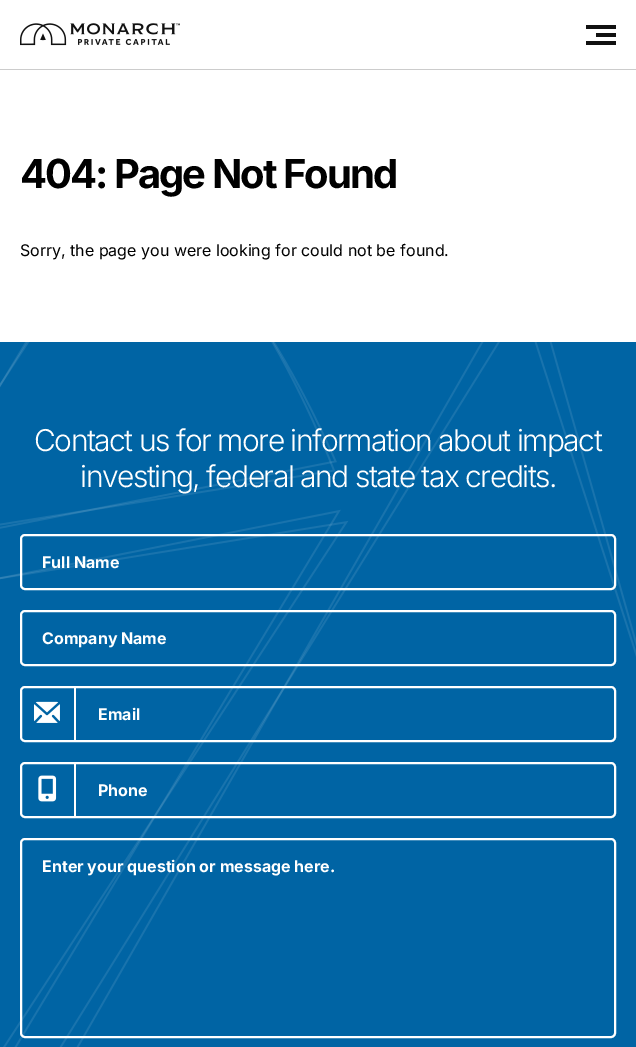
%!PS-Adobe-3.0
%%BoundingBox: 0 0 636 1047
%%LanguageLevel: 3
%%Pages: 1
%%EndComments
%%BeginProlog
/setink { 3 { 255 div 3 1 roll } repeat setrgbcolor } def
/usefont { [ exch dup neg 0 0 3 -1 roll 0 0 ] selectfont } def
/drawtext { setink usefont moveto show } def
/fillbox { setink rectfill } def
/rrect { 5 dict begin { /r /h /w /y /x } { exch def } forall
  x r add y moveto x w add y 2 copy h add r arct x w add y h add x 1 index r arct
  x y h add x y r arct x y 2 copy exch w add exch r arct closepath end } def
/drawimage { 5 dict begin { /h /w /y /x /name } { exch def } forall
  gsave x y translate w h scale
  w h 8 [w 0 0 h 0 0] name (r) file false 3 colorimage grestore end } def
%%EndProlog
%%BeginSetup
<< /PageSize [636 1047] >> setpagedevice
%%EndSetup
%%Page: 1 1
0 1047 translate 1 -1 scale
4 setmiterlimit
0 0 636 1047 255 255 255 fillbox
0 69 636 1 204 204 204 fillbox
(assets/img1.rgb) 20 23 160 23 drawimage
586 25 30 4 17 17 17 fillbox
586 41 30 4 17 17 17 fillbox
596 33 20 4 17 17 17 fillbox
/Inter-Bold 40 usefont
0 0 0 setink
20 188 moveto -2 0 (404: Page Not Found) ashow
(Sorry, the page you were looking for could not be found.) 20 256 /Inter-Regular 16 0 0 0 drawtext
0 342 636 705 0 100 164 fillbox
(assets/img2.rgb) 0 342 636 705 drawimage
/Inter-Light 30 usefont
255 255 255 setink
34 451 moveto -1.5 0 (Contact us for more information about impact) ashow
80 487 moveto -1.5 0 (investing, federal and state tax credits.) ashow
2 setlinewidth
21 535 594 54 4 rrect stroke
(Full Name) 42 568 /Inter-Bold 16 255 255 255 drawtext
21 611 594 54 4 rrect stroke
(Company Name) 42 644 /Inter-Bold 16 255 255 255 drawtext
21 687 594 54 4 rrect stroke
74 686 2 56 255 255 255 fillbox
(assets/img3.rgb) 34 701 26 22 drawimage
(Email) 98 720 /Inter-Bold 16 255 255 255 drawtext
21 763 594 54 4 rrect stroke
74 762 2 56 255 255 255 fillbox
(assets/img4.rgb) 38 775 19 27 drawimage
(Phone) 98 796 /Inter-Bold 16 255 255 255 drawtext
21 839 594 198 4 rrect stroke
(Enter your question or message here.) 42 872 /Inter-Bold 16 255 255 255 drawtext
showpage
%%EOF
